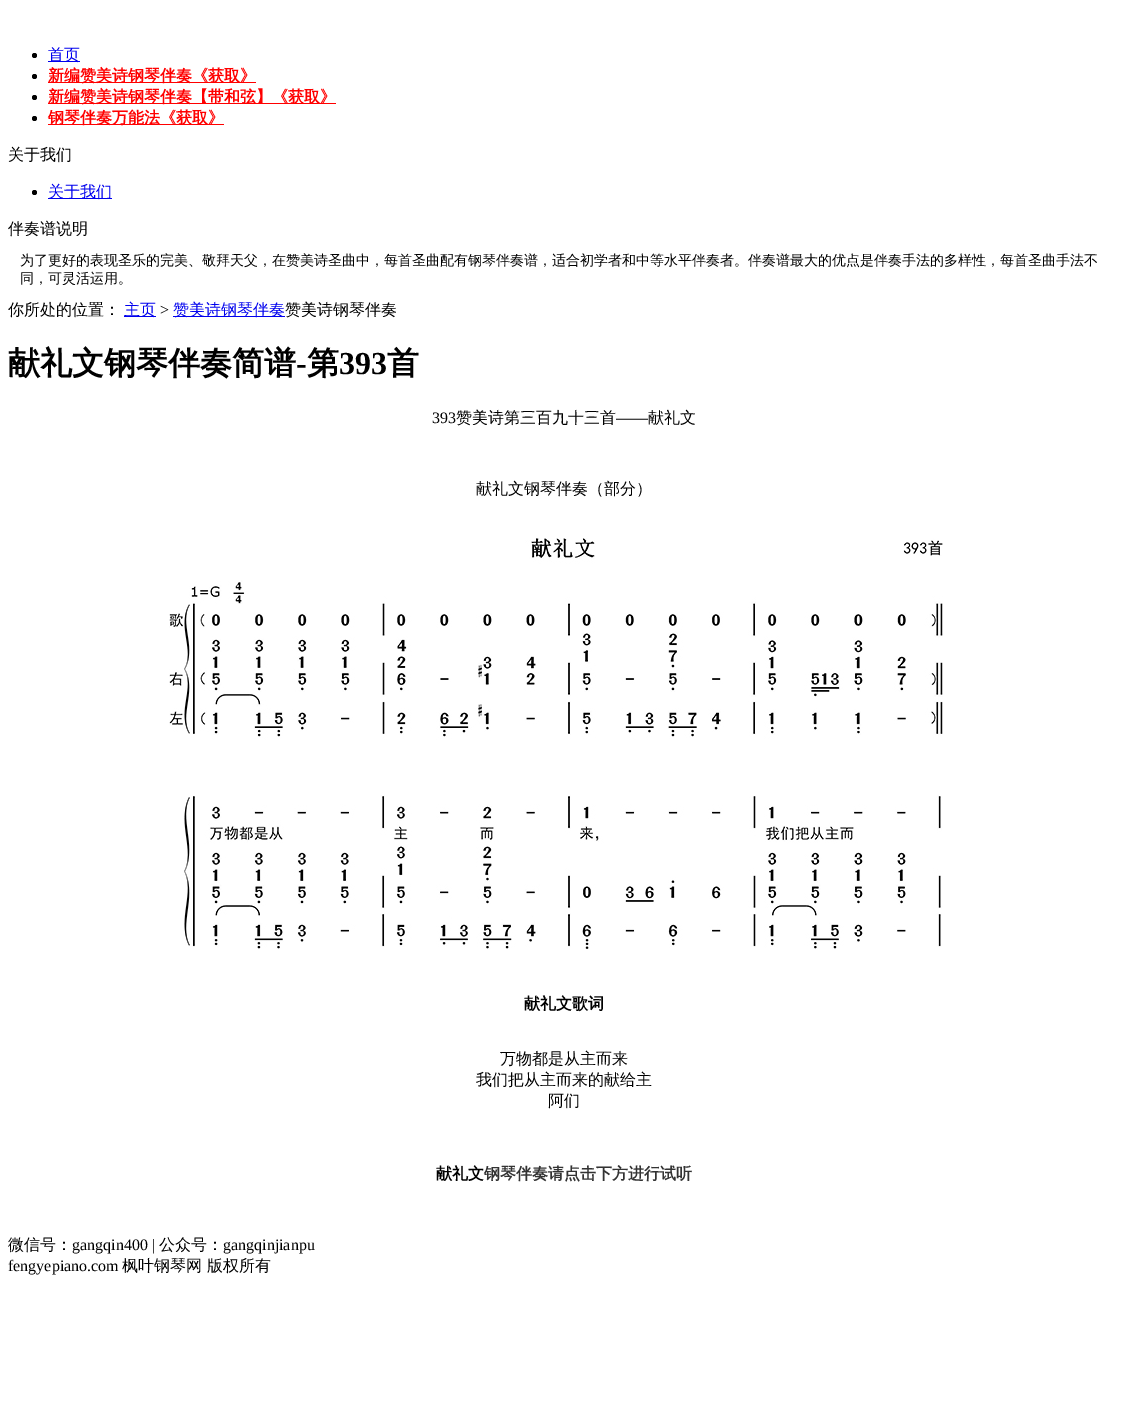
%!PS-Adobe-3.0
%%BoundingBox: 0 0 1127 1416
%%LanguageLevel: 3
%%Pages: 1
%%EndComments
%%BeginProlog
/setink { 3 { 255 div 3 1 roll } repeat setrgbcolor } def
/usefont { [ exch dup neg 0 0 3 -1 roll 0 0 ] selectfont } def
/drawtext { setink usefont moveto show } def
/fillbox { setink rectfill } def
/disc { newpath 0 360 arc closepath } def
/drawimage { 5 dict begin { /h /w /y /x /name } { exch def } forall
  gsave x y translate w h scale
  w h 8 [w 0 0 h 0 0] name (r) file false 3 colorimage grestore end } def
%%EndProlog
%%BeginSetup
<< /PageSize [1127 1416] >> setpagedevice
%%EndSetup
%%Page: 1 1
0 1416 translate 1 -1 scale
4 setmiterlimit
0 0 1127 1416 255 255 255 fillbox
0 0 0 setink
34.5 55.5 2.5 disc fill
48 61 32 1 0 0 238 fillbox
(首页) 48 60 /WenQuanYiZenHei-Medium 16 0 0 238 drawtext
0 0 0 setink
34.5 76.5 2.5 disc fill
48 82 208 1 255 0 0 fillbox
(新编赞美诗钢琴伴奏《获取》) 48 81 /WenQuanYiZenHei-Bold 16 255 0 0 drawtext
0 0 0 setink
34.5 97.5 2.5 disc fill
48 103 288 1 255 0 0 fillbox
(新编赞美诗钢琴伴奏【带和弦】《获取》) 48 102 /WenQuanYiZenHei-Bold 16 255 0 0 drawtext
0 0 0 setink
34.5 118.5 2.5 disc fill
48 124 176 1 255 0 0 fillbox
(钢琴伴奏万能法《获取》) 48 123 /WenQuanYiZenHei-Bold 16 255 0 0 drawtext
(关于我们) 8 160 /WenQuanYiZenHei-Medium 16 0 0 0 drawtext
34.5 192.5 2.5 disc fill
48 198 64 1 0 0 238 fillbox
(关于我们) 48 197 /WenQuanYiZenHei-Medium 16 0 0 238 drawtext
(伴奏谱说明) 8 234 /WenQuanYiZenHei-Medium 16 0 0 0 drawtext
(为了更好的表现圣乐的完美、敬拜天父，在赞美诗圣曲中，每首圣曲配有钢琴伴奏谱，适合初学者和中等水平伴奏者。伴奏谱最大的优点是伴奏手法的多样性，每首圣曲手法不) 20 265 /WenQuanYiZenHei-Medium 14 0 0 0 drawtext
(同，可灵活运用。) 20 283 /WenQuanYiZenHei-Medium 14 0 0 0 drawtext
(你所处的位置：) 8 315 /WenQuanYiZenHei-Medium 16 0 0 0 drawtext
124 316 32 1 0 0 238 fillbox
(主页) 124 315 /WenQuanYiZenHei-Medium 16 0 0 238 drawtext
(>) 160 315 /LiberationSerif-Regular 16 0 0 0 drawtext
173 316 112 1 0 0 238 fillbox
(赞美诗钢琴伴奏) 173 315 /WenQuanYiZenHei-Medium 16 0 0 238 drawtext
(赞美诗钢琴伴奏) 285 315 /WenQuanYiZenHei-Medium 16 0 0 0 drawtext
(献礼文钢琴伴奏简谱) 8 374 /WenQuanYiZenHei-Bold 32 0 0 0 drawtext
(-) 296 374 /LiberationSerif-Bold 32 0 0 0 drawtext
(第) 307 374 /WenQuanYiZenHei-Bold 32 0 0 0 drawtext
(393) 339 374 /LiberationSerif-Bold 32 0 0 0 drawtext
(首) 387 374 /WenQuanYiZenHei-Bold 32 0 0 0 drawtext
(393) 432 423 /LiberationSerif-Regular 16 0 0 0 drawtext
(赞美诗第三百九十三首) 456 423 /WenQuanYiZenHei-Medium 16 0 0 0 drawtext
(——) 616 423 /LiberationSerif-Regular 16 0 0 0 drawtext
(献礼文) 648 423 /WenQuanYiZenHei-Medium 16 0 0 0 drawtext
(献礼文钢琴伴奏（部分）) 476 494 /WenQuanYiZenHei-Medium 16 0 0 0 drawtext
(assets/img1.rgb) 169 538 774 411 drawimage
(献礼文歌词) 524 1009 /WenQuanYiZenHei-Bold 16 0 0 0 drawtext
(万物都是从主而来) 500 1064 /WenQuanYiZenHei-Medium 16 0 0 0 drawtext
(我们把从主而来的献给主) 476 1085 /WenQuanYiZenHei-Medium 16 0 0 0 drawtext
(阿们) 548 1106 /WenQuanYiZenHei-Medium 16 0 0 0 drawtext
(献礼文) 436 1179 /WenQuanYiZenHei-Bold 16 0 0 0 drawtext
(钢琴伴奏请点击下方进行试听) 484 1179 /WenQuanYiZenHei-Bold 16 51 51 51 drawtext
(微信号：) 8 1250 /WenQuanYiZenHei-Medium 16 0 0 0 drawtext
(gangqin400 |) 72 1250 /LiberationSerif-Regular 16 0 0 0 drawtext
(公众号：) 159 1250 /WenQuanYiZenHei-Medium 16 0 0 0 drawtext
(gangqinjianpu) 223 1250 /LiberationSerif-Regular 16 0 0 0 drawtext
(fengyepiano.com) 8 1271 /LiberationSerif-Regular 16 0 0 0 drawtext
(枫叶钢琴网 版权所有) 122 1271 /WenQuanYiZenHei-Medium 16 0 0 0 drawtext
showpage
%%EOF
